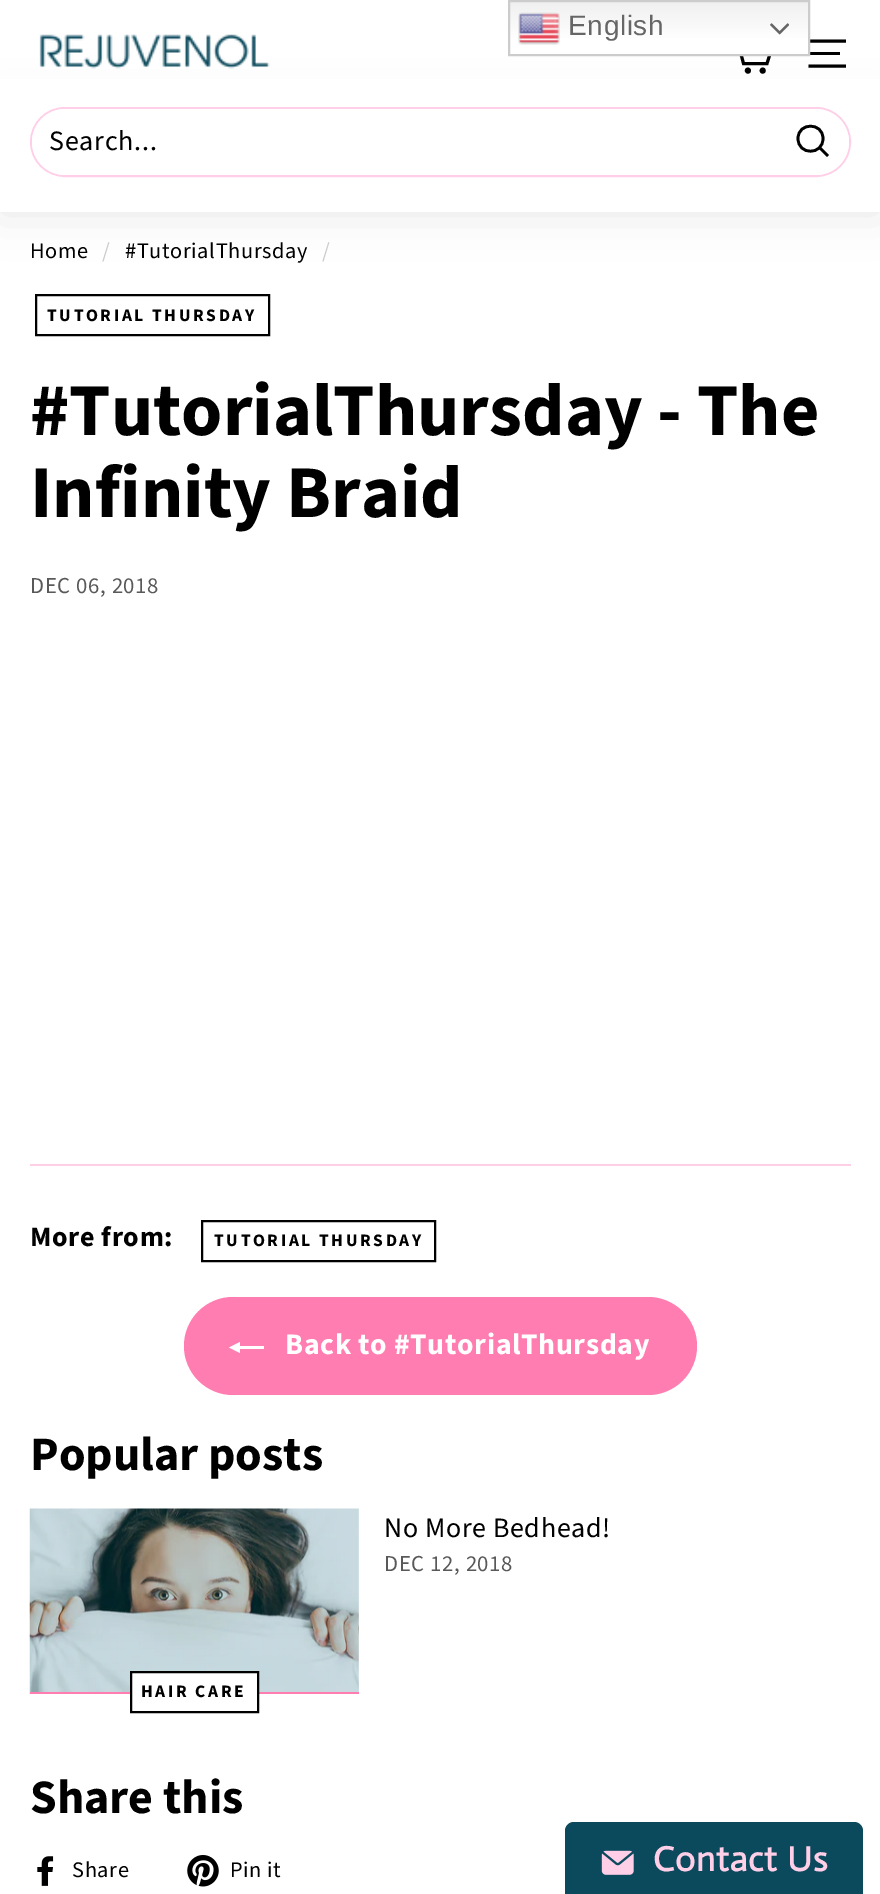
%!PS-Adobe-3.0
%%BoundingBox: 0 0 880 1894
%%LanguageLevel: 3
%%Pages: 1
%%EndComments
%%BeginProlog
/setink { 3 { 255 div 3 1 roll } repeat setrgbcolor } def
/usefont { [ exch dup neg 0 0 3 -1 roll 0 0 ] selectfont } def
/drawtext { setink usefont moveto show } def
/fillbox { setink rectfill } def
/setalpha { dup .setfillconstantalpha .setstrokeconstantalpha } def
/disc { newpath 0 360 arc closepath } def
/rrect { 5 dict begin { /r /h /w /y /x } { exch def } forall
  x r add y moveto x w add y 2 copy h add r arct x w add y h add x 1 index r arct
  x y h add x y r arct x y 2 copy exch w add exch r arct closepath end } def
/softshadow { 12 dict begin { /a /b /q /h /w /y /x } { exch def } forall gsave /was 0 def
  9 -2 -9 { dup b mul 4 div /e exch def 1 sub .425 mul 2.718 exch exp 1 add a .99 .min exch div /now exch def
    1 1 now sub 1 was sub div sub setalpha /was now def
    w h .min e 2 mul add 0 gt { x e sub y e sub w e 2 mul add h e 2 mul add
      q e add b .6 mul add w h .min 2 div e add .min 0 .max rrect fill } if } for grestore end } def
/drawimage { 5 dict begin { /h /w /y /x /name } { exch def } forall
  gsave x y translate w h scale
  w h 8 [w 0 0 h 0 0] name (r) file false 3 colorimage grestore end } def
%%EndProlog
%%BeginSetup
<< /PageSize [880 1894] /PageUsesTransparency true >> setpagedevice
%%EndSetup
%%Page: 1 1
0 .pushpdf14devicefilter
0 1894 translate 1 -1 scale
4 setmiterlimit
0 0 880 1894 255 255 255 fillbox
0 0 0 setink
0 107 880 105 0 22 0.1 softshadow
3 setlinewidth
738.5 44.5 moveto 773 44.5 lineto 767 63.5 lineto 743.5 63.5 lineto 736.5 37.5 lineto 730 37.5 lineto stroke
gsave 510 2 moveto 808 2 lineto 808 54 lineto 510 54 lineto closepath clip newpath
<< /ShadingType 2 /ColorSpace /DeviceRGB /Coords [659 0 659 56] /Extend [true true] /Function << /FunctionType 3 /Domain [0 1] /Functions [<< /FunctionType 2 /Domain [0 1] /C0 [0.937 0.937 0.937] /C1 [1 1 1] /N 1 >> << /FunctionType 2 /Domain [0 1] /C0 [1 1 1] /C1 [1 1 1] /N 1 >>] /Bounds [0.7] /Encode [0 1 0 1] >> >> shfill grestore
808.5 41 moveto 846 41 lineto stroke
809 52 31 3 0 0 0 fillbox
204 204 204 setink
2 setlinewidth
509 1 300 54 rectstroke
(assets/img1.rgb) 518 12 42 33 drawimage
/LiberationSans-Regular 28 usefont
102 102 102 setink
568 35 moveto 0.65 0 (English) ashow
(assets/img2.rgb) 770 23 19 12 drawimage
(assets/img3.rgb) 39 34 231 35 drawimage
0 0 0 setink
3 setlinewidth
747.9 70.6 1.5 disc stroke
762.7 70.6 1.5 disc stroke
808.5 66 moveto 846 66 lineto stroke
0 79 880 133 255 255 255 fillbox
255 207 232 setink
2 setlinewidth
31 108 819 68 34 rrect stroke
255 255 255 setink
32 109 817 66 33 rrect fill
/SourceSansPro-Regular 28 usefont
0 0 0 setink
49 150 moveto 0.75 0 (Search...) ashow
2.7 setlinewidth
823 138.5 moveto 823 155.5 798 155.5 798 138.5 curveto 798 122 823 122 823 138.5 curveto closepath 828 156 moveto 819.5 147.5 lineto stroke
/SourceSansPro-Regular 22.25 usefont
30 258 moveto 0.65 0 (Home) ashow
204 204 204 setink
102 258 moveto 0.65 0 (/) ashow
0 0 0 setink
125 258 moveto 0.65 0 (#TutorialThursday) ashow
204 204 204 setink
322 258 moveto 0.65 0 (/) ashow
0 0 0 setink
2 setlinewidth
36 295 233 40 rectstroke
/SourceSansPro-Bold 17.5 usefont
47 321 moveto 2.6 0 (TUTORIAL THURSDAY) ashow
(#TutorialThursday - The) 30 435 /SourceSansPro-Bold 74.4 0 0 0 drawtext
(Infinity Braid) 30 517 /SourceSansPro-Bold 74.4 0 0 0 drawtext
/SourceSansPro-Regular 22.75 usefont
89 89 89 setink
30 593 moveto 0.65 0 (DEC 06, 2018) ashow
30 1164 821 2 255 207 232 fillbox
/SourceSansPro-Bold 28 usefont
0 0 0 setink
30 1246 moveto 0.65 0 (More from:) ashow
202 1221 233 40 rectstroke
/SourceSansPro-Bold 17.5 usefont
214 1246 moveto 2.6 0 (TUTORIAL THURSDAY) ashow
255 125 176 setink
184 1297 513 98 49 rrect fill
255 255 255 setink
264 1346 moveto 264 1349 lineto 240 1349 lineto 240 1353 lineto 229 1347.5 lineto 240 1342 lineto 240 1346 lineto closepath fill
/SourceSansPro-Bold 29.75 usefont
285 1354 moveto 0.65 0 (Back to #TutorialThursday) ashow
(Popular posts) 30 1470 /SourceSansPro-Bold 48 0 0 0 drawtext
/SourceSansPro-Regular 28 usefont
384 1537 moveto 0.65 0 (No More Bedhead!) ashow
/SourceSansPro-Regular 22.75 usefont
89 89 89 setink
384 1571 moveto 0.65 0 (DEC 12, 2018) ashow
(assets/img4.rgb) 29 1508 330 186 drawimage
30 1692 329 2 255 125 176 fillbox
132 1673 125 21 255 255 255 fillbox
0 0 0 setink
131 1672 127 40 rectstroke
/SourceSansPro-Bold 17.5 usefont
141 1697 moveto 2.6 0 (HAIR CARE) ashow
(Share this) 30 1813 /SourceSansPro-Bold 48 0 0 0 drawtext
(assets/img5.rgb) 37 1856 17 30 drawimage
/SourceSansPro-Regular 22.25 usefont
72 1877 moveto 0.65 0 (Share) ashow
(assets/img6.rgb) 187 1855 32 32 drawimage
230 1877 moveto 0.65 0 (Pin it) ashow
11 73 92 setink
574 1822 moveto 854 1822 lineto 859 1822 863 1826 863 1831 curveto 863 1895 lineto 565 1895 lineto 565 1831 lineto 565 1826 569 1822 574 1822 curveto closepath fill
(assets/img7.rgb) 601 1850 33 25 drawimage
/Actor-Bold 35 usefont
255 207 232 setink
653 1871 moveto 0.9 0 (Contact Us) ashow
.poppdf14devicefilter showpage
%%EOF
